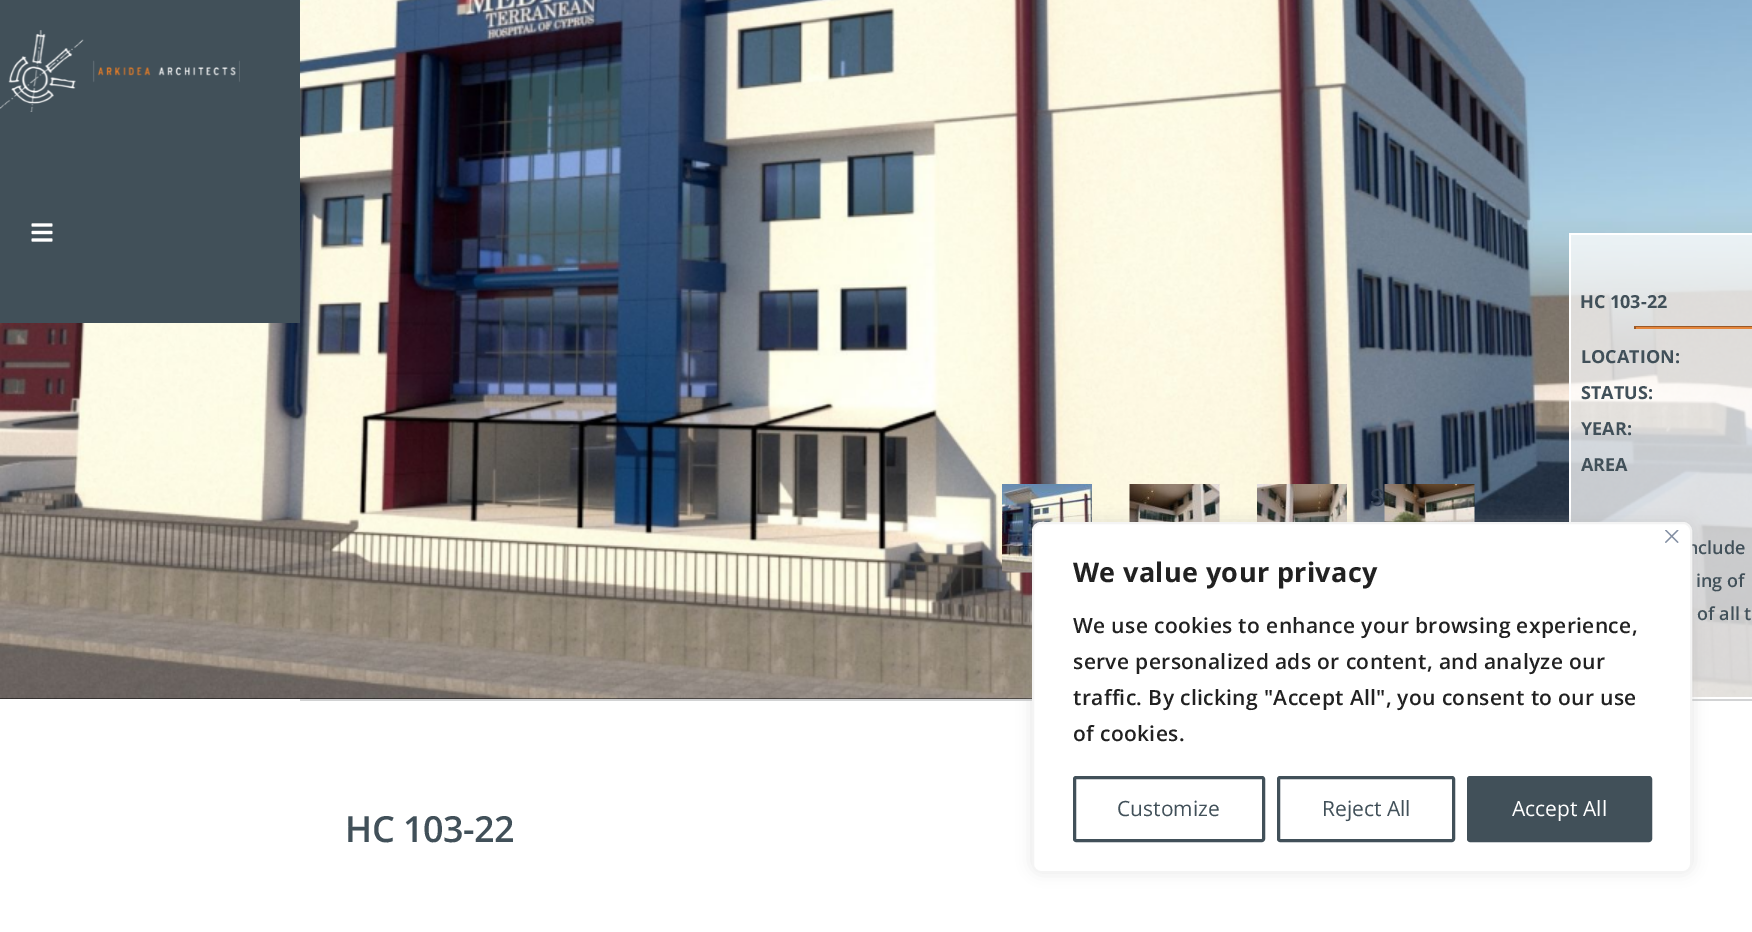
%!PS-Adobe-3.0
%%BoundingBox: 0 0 1752 932
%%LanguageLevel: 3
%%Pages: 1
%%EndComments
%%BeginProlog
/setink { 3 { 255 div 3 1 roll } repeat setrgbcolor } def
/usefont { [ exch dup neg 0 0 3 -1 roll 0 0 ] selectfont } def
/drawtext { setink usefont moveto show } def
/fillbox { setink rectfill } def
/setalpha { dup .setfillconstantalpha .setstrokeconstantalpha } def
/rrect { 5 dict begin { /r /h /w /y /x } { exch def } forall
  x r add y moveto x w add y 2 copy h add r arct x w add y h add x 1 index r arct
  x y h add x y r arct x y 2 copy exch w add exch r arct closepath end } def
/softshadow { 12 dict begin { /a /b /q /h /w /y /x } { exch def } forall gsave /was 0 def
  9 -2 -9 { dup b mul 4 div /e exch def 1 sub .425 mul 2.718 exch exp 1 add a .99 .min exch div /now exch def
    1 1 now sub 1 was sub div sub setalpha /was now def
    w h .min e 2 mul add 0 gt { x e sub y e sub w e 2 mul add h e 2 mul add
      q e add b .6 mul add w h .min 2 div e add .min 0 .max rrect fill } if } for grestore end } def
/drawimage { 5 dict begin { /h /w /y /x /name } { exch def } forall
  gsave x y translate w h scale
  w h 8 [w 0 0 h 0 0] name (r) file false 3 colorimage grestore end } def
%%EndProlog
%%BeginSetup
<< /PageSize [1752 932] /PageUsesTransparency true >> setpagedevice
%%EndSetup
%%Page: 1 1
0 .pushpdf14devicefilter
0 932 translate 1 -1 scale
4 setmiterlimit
0 0 1752 932 255 255 255 fillbox
0 698 1032 1 0 0 0 fillbox
(assets/img3.rgb) 0 0 1752 699 drawimage
0 0 300 323 65 80 89 fillbox
(assets/img1.rgb) 0 30 240 82 drawimage
(assets/img2.rgb) 31 223 22 19 drawimage
300 699 1452 2 210 211 212 fillbox
(assets/img4.rgb) 1002 484 90 89 drawimage
(assets/img5.rgb) 1129 484 91 38 drawimage
(assets/img6.rgb) 1257 484 90 38 drawimage
/Roboto-Regular 24 usefont
52 64 83 setink
1370 506 moveto 0.35 0 (S) ashow
(assets/img7.rgb) 1384 484 91 38 drawimage
0.75 setalpha
1571 235 181 462 255 255 255 fillbox
1 setalpha
1569 233 moveto 1569 699 lineto 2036 699 lineto 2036 233 lineto closepath 1571 235 moveto 1571 697 lineto 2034 697 lineto 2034 235 lineto closepath eofill
(HC 103-22) 1580 308 /OpenSans-Bold 18 65 80 89 drawtext
1634 326 118 1 153 89 40 fillbox
1634 327 118 2 229 134 60 fillbox
1634 326 2 3 153 89 40 fillbox
(LOCATION:) 1581 363 /OpenSans-Bold 18 65 80 89 drawtext
(STATUS:) 1581 399 /OpenSans-Bold 18 65 80 89 drawtext
(YEAR:) 1581 435 /OpenSans-Bold 18 65 80 89 drawtext
(AREA) 1581 471 /OpenSans-Bold 18 65 80 89 drawtext
(nclude) 1687 554 /OpenSans-SemiBold 18 65 80 89 drawtext
(ing of) 1696 587 /OpenSans-SemiBold 18 65 80 89 drawtext
(of all t) 1697 620 /OpenSans-SemiBold 18 65 80 89 drawtext
/OpenSans-SemiBold 36 usefont
345 842 moveto -0.5 0 (HC 103-22) ashow
172 171 171 setink
1032 521 660 351 9 7.5 0.3 softshadow
255 255 255 setink
1033 523 658 349 8 rrect gsave fill grestore
244 244 244 setink
2 setlinewidth
stroke
(assets/img8.rgb) 1665 530 14 13 drawimage
/OpenSans-Bold 27 usefont
33 33 33 setink
1073 582 moveto 0.35 0 (We value your privacy) ashow
/OpenSans-SemiBold 21 usefont
1073 633 moveto 0.35 0 (We use cookies to enhance your browsing experience,) ashow
1073 669 moveto 0.35 0 (serve personalized ads or content, and analyze our) ashow
1073 705 moveto 0.35 0 (traffic. By clicking "Accept All", you consent to our use) ashow
1073 741 moveto 0.35 0 (of cookies.) ashow
65 80 89 setink
3 setlinewidth
1074.5 777.5 189 63 1.5 rrect stroke
(Customize) 1117 816 /OpenSans-Regular 21 65 80 89 drawtext
1278.5 777.5 175 63 1.5 rrect stroke
(Reject All) 1322 816 /OpenSans-Regular 21 65 80 89 drawtext
1468.5 777.5 182 63 1.5 rrect gsave fill grestore
stroke
(Accept All) 1512 816 /OpenSans-Regular 21 255 255 255 drawtext
.poppdf14devicefilter showpage
%%EOF
